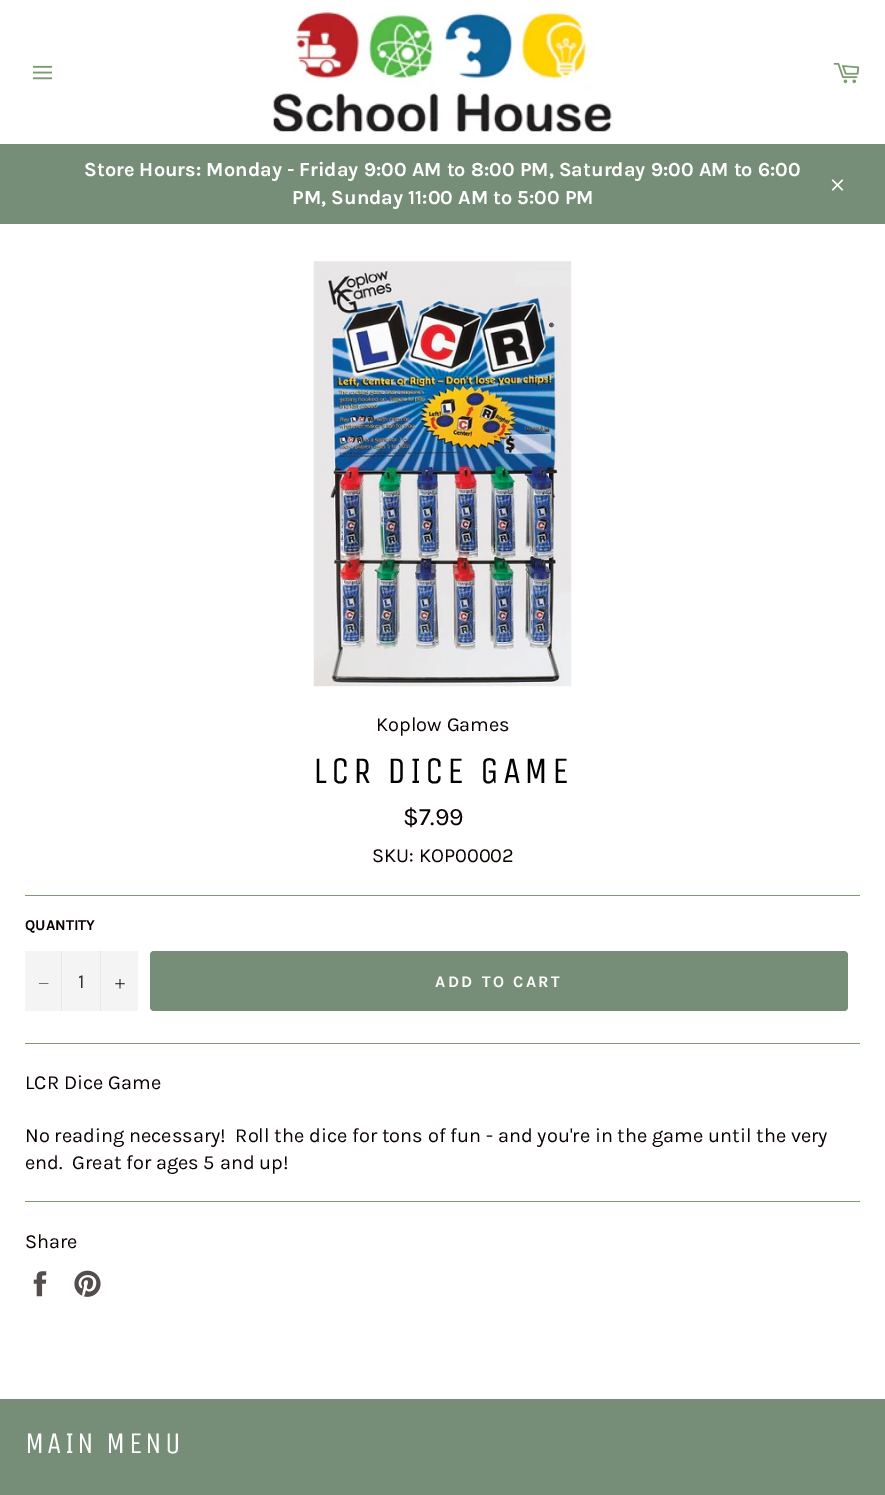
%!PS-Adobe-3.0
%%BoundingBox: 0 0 885 1495
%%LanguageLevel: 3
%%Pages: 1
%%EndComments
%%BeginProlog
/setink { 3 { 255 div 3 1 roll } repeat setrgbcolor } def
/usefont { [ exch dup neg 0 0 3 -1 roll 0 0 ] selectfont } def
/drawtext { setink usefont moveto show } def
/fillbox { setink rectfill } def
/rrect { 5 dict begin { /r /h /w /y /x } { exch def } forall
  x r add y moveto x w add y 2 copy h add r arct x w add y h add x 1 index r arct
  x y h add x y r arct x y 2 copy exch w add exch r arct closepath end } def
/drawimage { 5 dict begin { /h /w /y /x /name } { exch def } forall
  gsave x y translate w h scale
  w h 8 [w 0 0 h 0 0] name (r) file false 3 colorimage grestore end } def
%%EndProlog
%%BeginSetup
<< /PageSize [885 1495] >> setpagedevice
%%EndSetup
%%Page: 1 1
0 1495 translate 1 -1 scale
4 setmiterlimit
0 0 885 1495 255 255 255 fillbox
(assets/img1.rgb) 32 65 21 15 drawimage
(assets/img2.rgb) 273 12 339 120 drawimage
(assets/img3.rgb) 833 63 27 21 drawimage
0 144 885 80 118 142 119 fillbox
(Store Hours: Monday - Friday 9:00 AM to 8:00 PM, Saturday 9:00 AM to 6:00) 84 176 /Karla-Bold 20 255 255 255 drawtext
(PM, Sunday 11:00 AM to 5:00 PM) 292 204 /Karla-Bold 20 255 255 255 drawtext
(assets/img4.rgb) 831 179 13 12 drawimage
(assets/img5.rgb) 313 261 259 426 drawimage
(Koplow Games) 376 731 /Karla-Regular 20 9 0 0 drawtext
/UnicaOne-Regular 37.5 usefont
0 0 0 setink
313 783 moveto 3.75 0 (LCR DICE GAME) ashow
($7.99) 403 825 /Karla-Regular 25 9 0 0 drawtext
(SKU: KOP00002) 372 862 /Karla-Regular 20 9 0 0 drawtext
25 895 835 1 122 156 113 fillbox
(QUANTITY) 25 930 /Karla-Bold 15 9 0 0 drawtext
25 951 113 60 244 244 244 fillbox
61 951 1 60 231 231 231 fillbox
9 0 0 setink
48.5 983.5 moveto 48.5 984 lineto 39 984 lineto 39 983.5 lineto closepath eofill
(1) 78 988 /Karla-Regular 20 51 51 51 drawtext
100 951 1 60 231 231 231 fillbox
(assets/img6.rgb) 115 979 10 10 drawimage
118 142 119 setink
150 951 698 60 4 rrect fill
/Karla-Bold 16.25 usefont
255 255 255 setink
435 987 moveto 2.5 0 (ADD TO CART) ashow
25 1043 835 1 122 156 113 fillbox
(LCR Dice Game) 25 1089 /Karla-Regular 20 9 0 0 drawtext
(No reading necessary!  Roll the dice for tons of fun - and you're in the game until the very) 25 1142 /Karla-Regular 20 9 0 0 drawtext
(end.  Great for ages 5 and up!) 25 1169 /Karla-Regular 20 9 0 0 drawtext
25 1201 835 1 122 156 113 fillbox
(Share) 25 1248 /Karla-Regular 20 9 0 0 drawtext
(assets/img7.rgb) 33 1271 14 26 drawimage
(assets/img8.rgb) 74 1270 27 27 drawimage
0 1399 885 96 118 142 119 fillbox
/UnicaOne-Regular 30 usefont
255 255 255 setink
25 1453 moveto 3 0 (MAIN MENU) ashow
showpage
%%EOF
